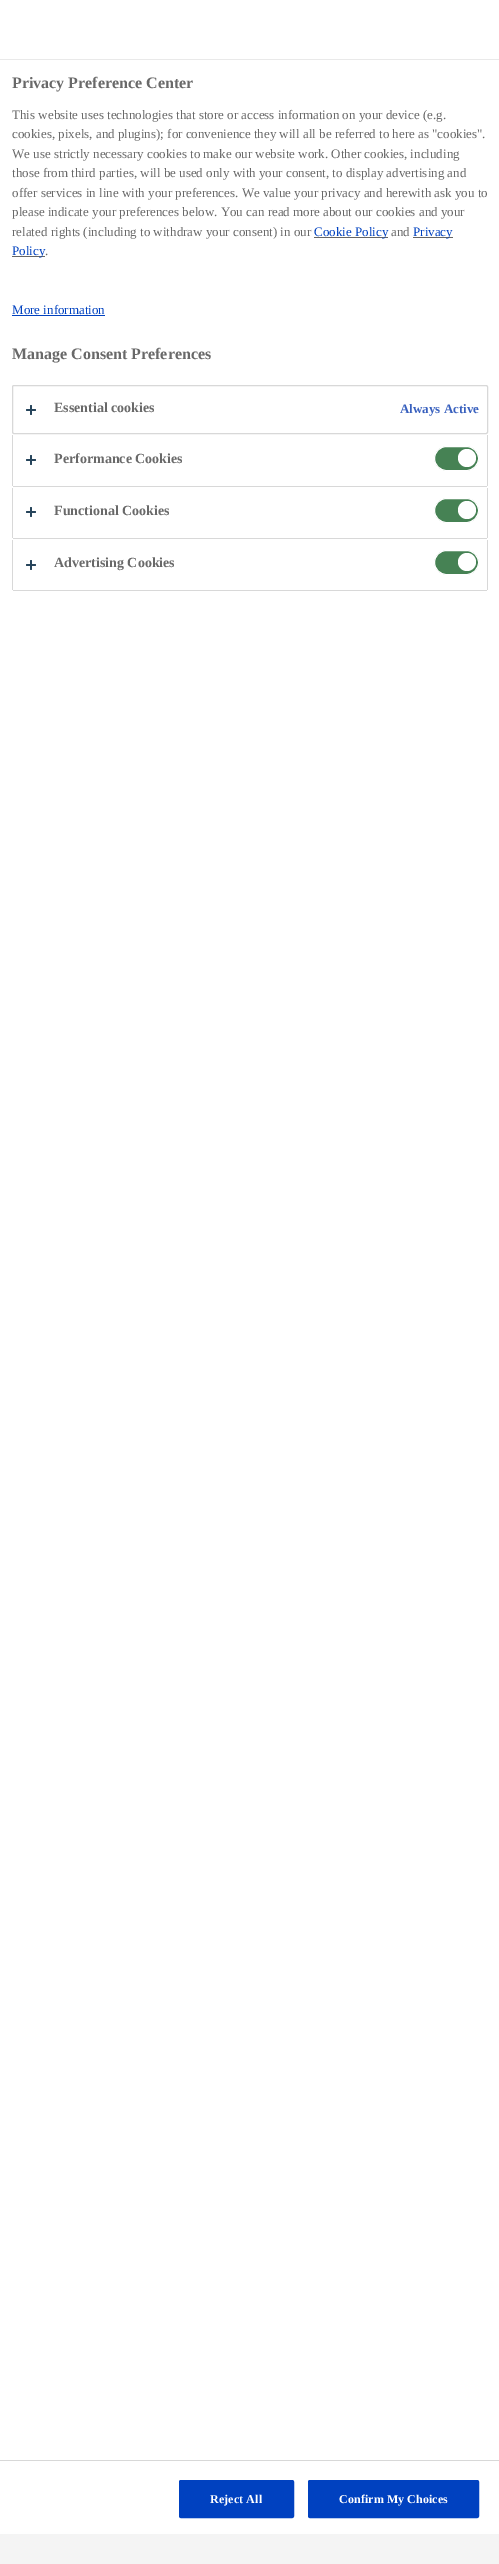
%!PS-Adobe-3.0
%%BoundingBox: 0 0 499 2564
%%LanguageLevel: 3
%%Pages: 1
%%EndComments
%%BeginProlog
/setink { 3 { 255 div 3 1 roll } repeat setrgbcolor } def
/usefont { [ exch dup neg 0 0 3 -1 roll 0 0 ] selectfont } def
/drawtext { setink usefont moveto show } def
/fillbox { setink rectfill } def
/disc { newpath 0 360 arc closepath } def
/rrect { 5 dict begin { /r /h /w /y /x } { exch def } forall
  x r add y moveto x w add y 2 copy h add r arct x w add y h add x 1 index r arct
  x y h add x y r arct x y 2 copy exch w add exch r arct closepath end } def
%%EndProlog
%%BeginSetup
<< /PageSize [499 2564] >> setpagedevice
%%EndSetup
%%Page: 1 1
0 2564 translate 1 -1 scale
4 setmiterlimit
0 0 499 2564 255 255 255 fillbox
0 59 499 1 233 233 233 fillbox
(Privacy Preference Center) 12 88 /LiberationSerif-Bold 16 105 105 105 drawtext
(This website uses technologies that store or access information on your device \(e.g.) 12 119 /LiberationSerif-Regular 13 105 105 105 drawtext
(cookies, pixels, and plugins\); for convenience they will all be referred to here as "cookies".) 12 138 /LiberationSerif-Regular 13 105 105 105 drawtext
(We use strictly necessary cookies to make our website work. Other cookies, including) 12 158 /LiberationSerif-Regular 13 105 105 105 drawtext
(those from third parties, will be used only with your consent, to display advertising and) 12 177 /LiberationSerif-Regular 13 105 105 105 drawtext
(offer services in line with your preferences. We value your privacy and herewith ask you to) 12 197 /LiberationSerif-Regular 13 105 105 105 drawtext
(please indicate your preferences below. You can read more about our cookies and your) 12 216 /LiberationSerif-Regular 13 105 105 105 drawtext
(related rights \(including to withdraw your consent\) in our) 12 236 /LiberationSerif-Regular 13 105 105 105 drawtext
314 237 74 1 101 101 101 fillbox
(Cookie Policy) 314 236 /LiberationSerif-Regular 13 0 65 192 drawtext
(and) 391 236 /LiberationSerif-Regular 13 105 105 105 drawtext
413 237 40 1 101 101 101 fillbox
(Privacy) 413 236 /LiberationSerif-Regular 13 0 65 192 drawtext
12 256 33 1 101 101 101 fillbox
(Policy) 12 255 /LiberationSerif-Regular 13 0 65 192 drawtext
(.) 45 255 /LiberationSerif-Regular 13 105 105 105 drawtext
(More information) 12 314 /LiberationSerif-Regular 13 0 65 192 drawtext
12 315 93 1 0 65 192 fillbox
(Manage Consent Preferences) 12 359 /LiberationSerif-Bold 16 105 105 105 drawtext
216 216 216 setink
12.5 385.5 475 48 1.5 rrect stroke
39 69 92 setink
30 405 2 10 1 rrect fill
26 409 10 2 1 rrect fill
(Essential cookies) 54 412 /LiberationSerif-Bold 14 105 105 105 drawtext
(Always Active) 400 413 /LiberationSerif-Bold 13 56 96 190 drawtext
487 435 1 51 216 216 216 fillbox
13 486 474 1 216 216 216 fillbox
12 435 1 51 216 216 216 fillbox
39 69 92 setink
30 455 2 10 1 rrect fill
26 459 10 2 1 rrect fill
(Performance Cookies) 54 463 /LiberationSerif-Bold 14 105 105 105 drawtext
70 130 84 setink
434.5 446.5 44 24 12 rrect gsave fill grestore
255 255 255 setink
stroke
467 458 9 disc fill
487 488 1 50 216 216 216 fillbox
13 538 474 1 216 216 216 fillbox
12 488 1 50 216 216 216 fillbox
39 69 92 setink
30 507 2 10 1 rrect fill
26 511 10 2 1 rrect fill
(Functional Cookies) 54 515 /LiberationSerif-Bold 14 105 105 105 drawtext
70 130 84 setink
434.5 498.5 44 24 12 rrect gsave fill grestore
255 255 255 setink
stroke
467 510 9 disc fill
487 540 1 50 216 216 216 fillbox
13 590 474 1 216 216 216 fillbox
12 540 1 50 216 216 216 fillbox
39 69 92 setink
30 560 2 10 1 rrect fill
26 564 10 2 1 rrect fill
(Advertising Cookies) 54 567 /LiberationSerif-Bold 14 105 105 105 drawtext
70 130 84 setink
434.5 550.5 44 24 12 rrect gsave fill grestore
255 255 255 setink
stroke
467 562 9 disc fill
0 2460 499 1 216 216 216 fillbox
0 65 192 setink
179.5 2480.5 114 37 1.5 rrect gsave fill grestore
stroke
/LiberationSerif-Bold 12 usefont
255 255 255 setink
210 2503 moveto 0.1 0 (Reject All) ashow
0 65 192 setink
308.5 2480.5 170 37 1.5 rrect gsave fill grestore
stroke
255 255 255 setink
339 2503 moveto 0.1 0 (Confirm My Choices) ashow
0 2534 499 30 244 244 244 fillbox
showpage
%%EOF
